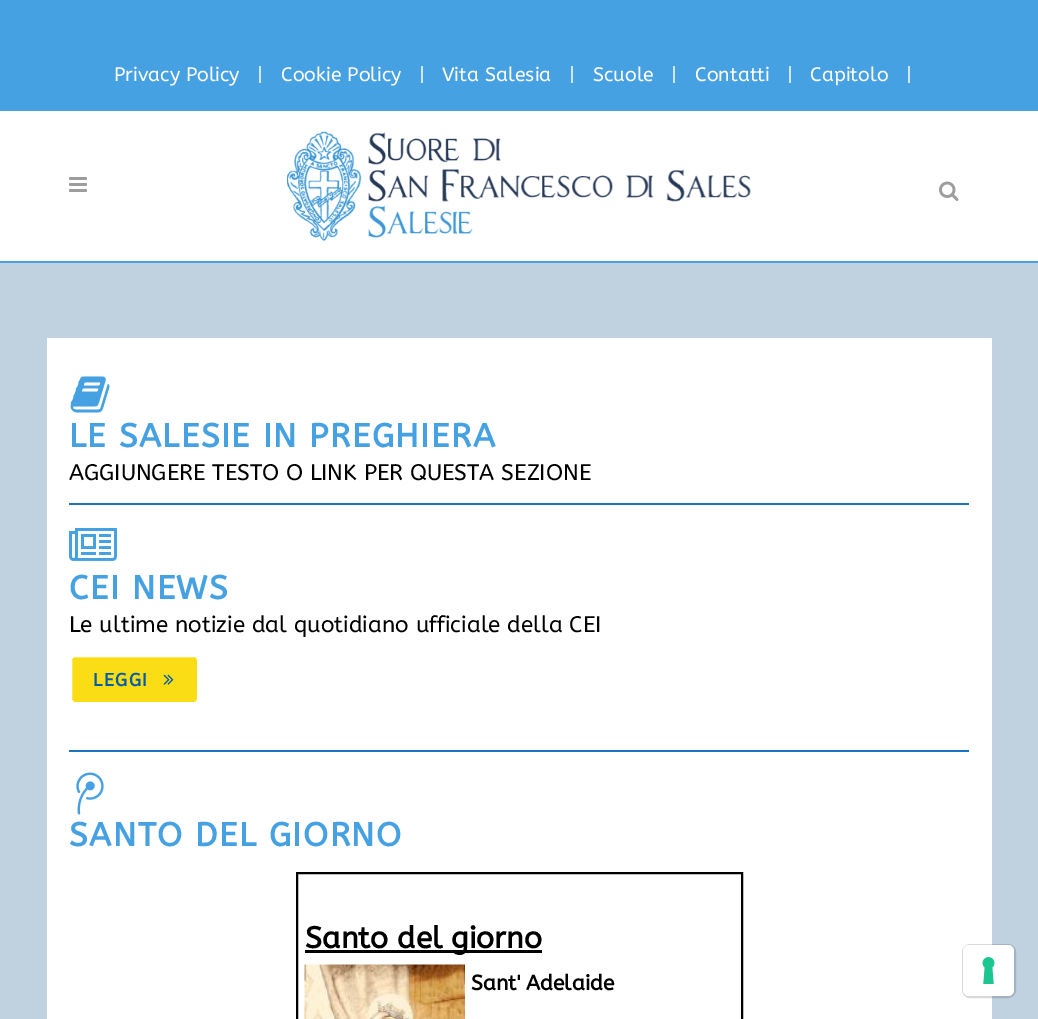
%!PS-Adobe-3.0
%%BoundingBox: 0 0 1038 1019
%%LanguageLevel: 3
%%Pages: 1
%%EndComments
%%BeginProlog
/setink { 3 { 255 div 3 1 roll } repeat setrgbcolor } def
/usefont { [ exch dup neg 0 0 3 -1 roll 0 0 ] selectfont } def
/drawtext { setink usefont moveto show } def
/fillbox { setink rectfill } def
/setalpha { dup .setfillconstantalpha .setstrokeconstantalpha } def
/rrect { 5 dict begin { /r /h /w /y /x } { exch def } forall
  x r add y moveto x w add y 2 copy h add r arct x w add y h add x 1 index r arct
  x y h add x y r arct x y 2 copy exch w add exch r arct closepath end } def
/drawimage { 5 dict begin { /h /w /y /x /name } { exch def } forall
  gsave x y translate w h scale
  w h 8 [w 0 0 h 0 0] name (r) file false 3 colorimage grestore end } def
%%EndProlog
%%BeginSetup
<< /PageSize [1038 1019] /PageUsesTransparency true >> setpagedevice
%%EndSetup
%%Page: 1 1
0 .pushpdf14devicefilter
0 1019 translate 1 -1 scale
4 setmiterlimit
0 0 1038 1019 255 255 255 fillbox
0 0 1038 111 70 161 226 fillbox
(Privacy Policy) 114 81 /ABeeZee-Regular 19.5 255 255 255 drawtext
(|) 257 81 /ABeeZee-Regular 19.5 255 255 255 drawtext
(Cookie Policy) 281 81 /ABeeZee-Regular 19.5 255 255 255 drawtext
(|) 419 81 /ABeeZee-Regular 19.5 255 255 255 drawtext
(Vita Salesia) 442 81 /ABeeZee-Regular 19.5 255 255 255 drawtext
(|) 569 81 /ABeeZee-Regular 19.5 255 255 255 drawtext
(Scuole) 593 81 /ABeeZee-Regular 19.5 255 255 255 drawtext
(|) 671 81 /ABeeZee-Regular 19.5 255 255 255 drawtext
(Contatti) 695 81 /ABeeZee-Regular 19.5 255 255 255 drawtext
(|) 787 81 /ABeeZee-Regular 19.5 255 255 255 drawtext
(Capitolo) 810 81 /ABeeZee-Regular 19.5 255 255 255 drawtext
(|) 906 81 /ABeeZee-Regular 19.5 255 255 255 drawtext
0 261 1038 2 70 161 226 fillbox
(assets/img1.rgb) 69 177 18 15 drawimage
(assets/img2.rgb) 287 131 464 110 drawimage
(assets/img3.rgb) 939 181 20 20 drawimage
0 263 1038 756 192 210 224 fillbox
47 338 945 681 255 255 255 fillbox
(assets/img4.rgb) 70 376 40 37 drawimage
/ABeeZee-Bold 33 usefont
70 161 226 setink
69 447 moveto 1.5 0 (LE SALESIE IN PREGHIERA) ashow
(AGGIUNGERE TESTO O LINK PER QUESTA SEZIONE) 69 480 /ABeeZee-Regular 22.5 0 0 0 drawtext
69 503 900 2 30 115 190 fillbox
(assets/img5.rgb) 69 528 48 33 drawimage
/ABeeZee-Bold 33 usefont
70 161 226 setink
69 599 moveto 1.5 0 (CEI NEWS) ashow
(Le ultime notizie dal quotidiano ufficiale della CEI) 69 632 /ABeeZee-Regular 22.5 0 0 0 drawtext
251 221 22 setink
70.5 655.5 128 48 4.5 rrect gsave fill grestore
255 255 255 setink
3 setlinewidth
stroke
/ABeeZee-Bold 18 usefont
0 91 170 setink
93 686 moveto 1.5 0 (LEGGI) ashow
(assets/img6.rgb) 163 674 11 11 drawimage
69 750 900 2 30 115 190 fillbox
(assets/img7.rgb) 76 772 28 43 drawimage
/ABeeZee-Bold 33 usefont
70 161 226 setink
69 846 moveto 1.5 0 (SANTO DEL GIORNO) ashow
0 0 0 setink
2 setlinewidth
297 873 445 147 rectstroke
305 950 237 3 0 0 0 fillbox
(Santo del giorno) 305 948 /ABeeZee-Bold 30 0 0 0 drawtext
(assets/img8.rgb) 304 964 161 55 drawimage
(Sant' Adelaide) 471 990 /ABeeZee-Bold 21 0 0 0 drawtext
0.15 setalpha
963 945 52 52 7 rrect stroke
1 setalpha
255 255 255 setink
963 945 51 51 6 rrect fill
(assets/img9.rgb) 982 957 13 27 drawimage
.poppdf14devicefilter showpage
%%EOF
